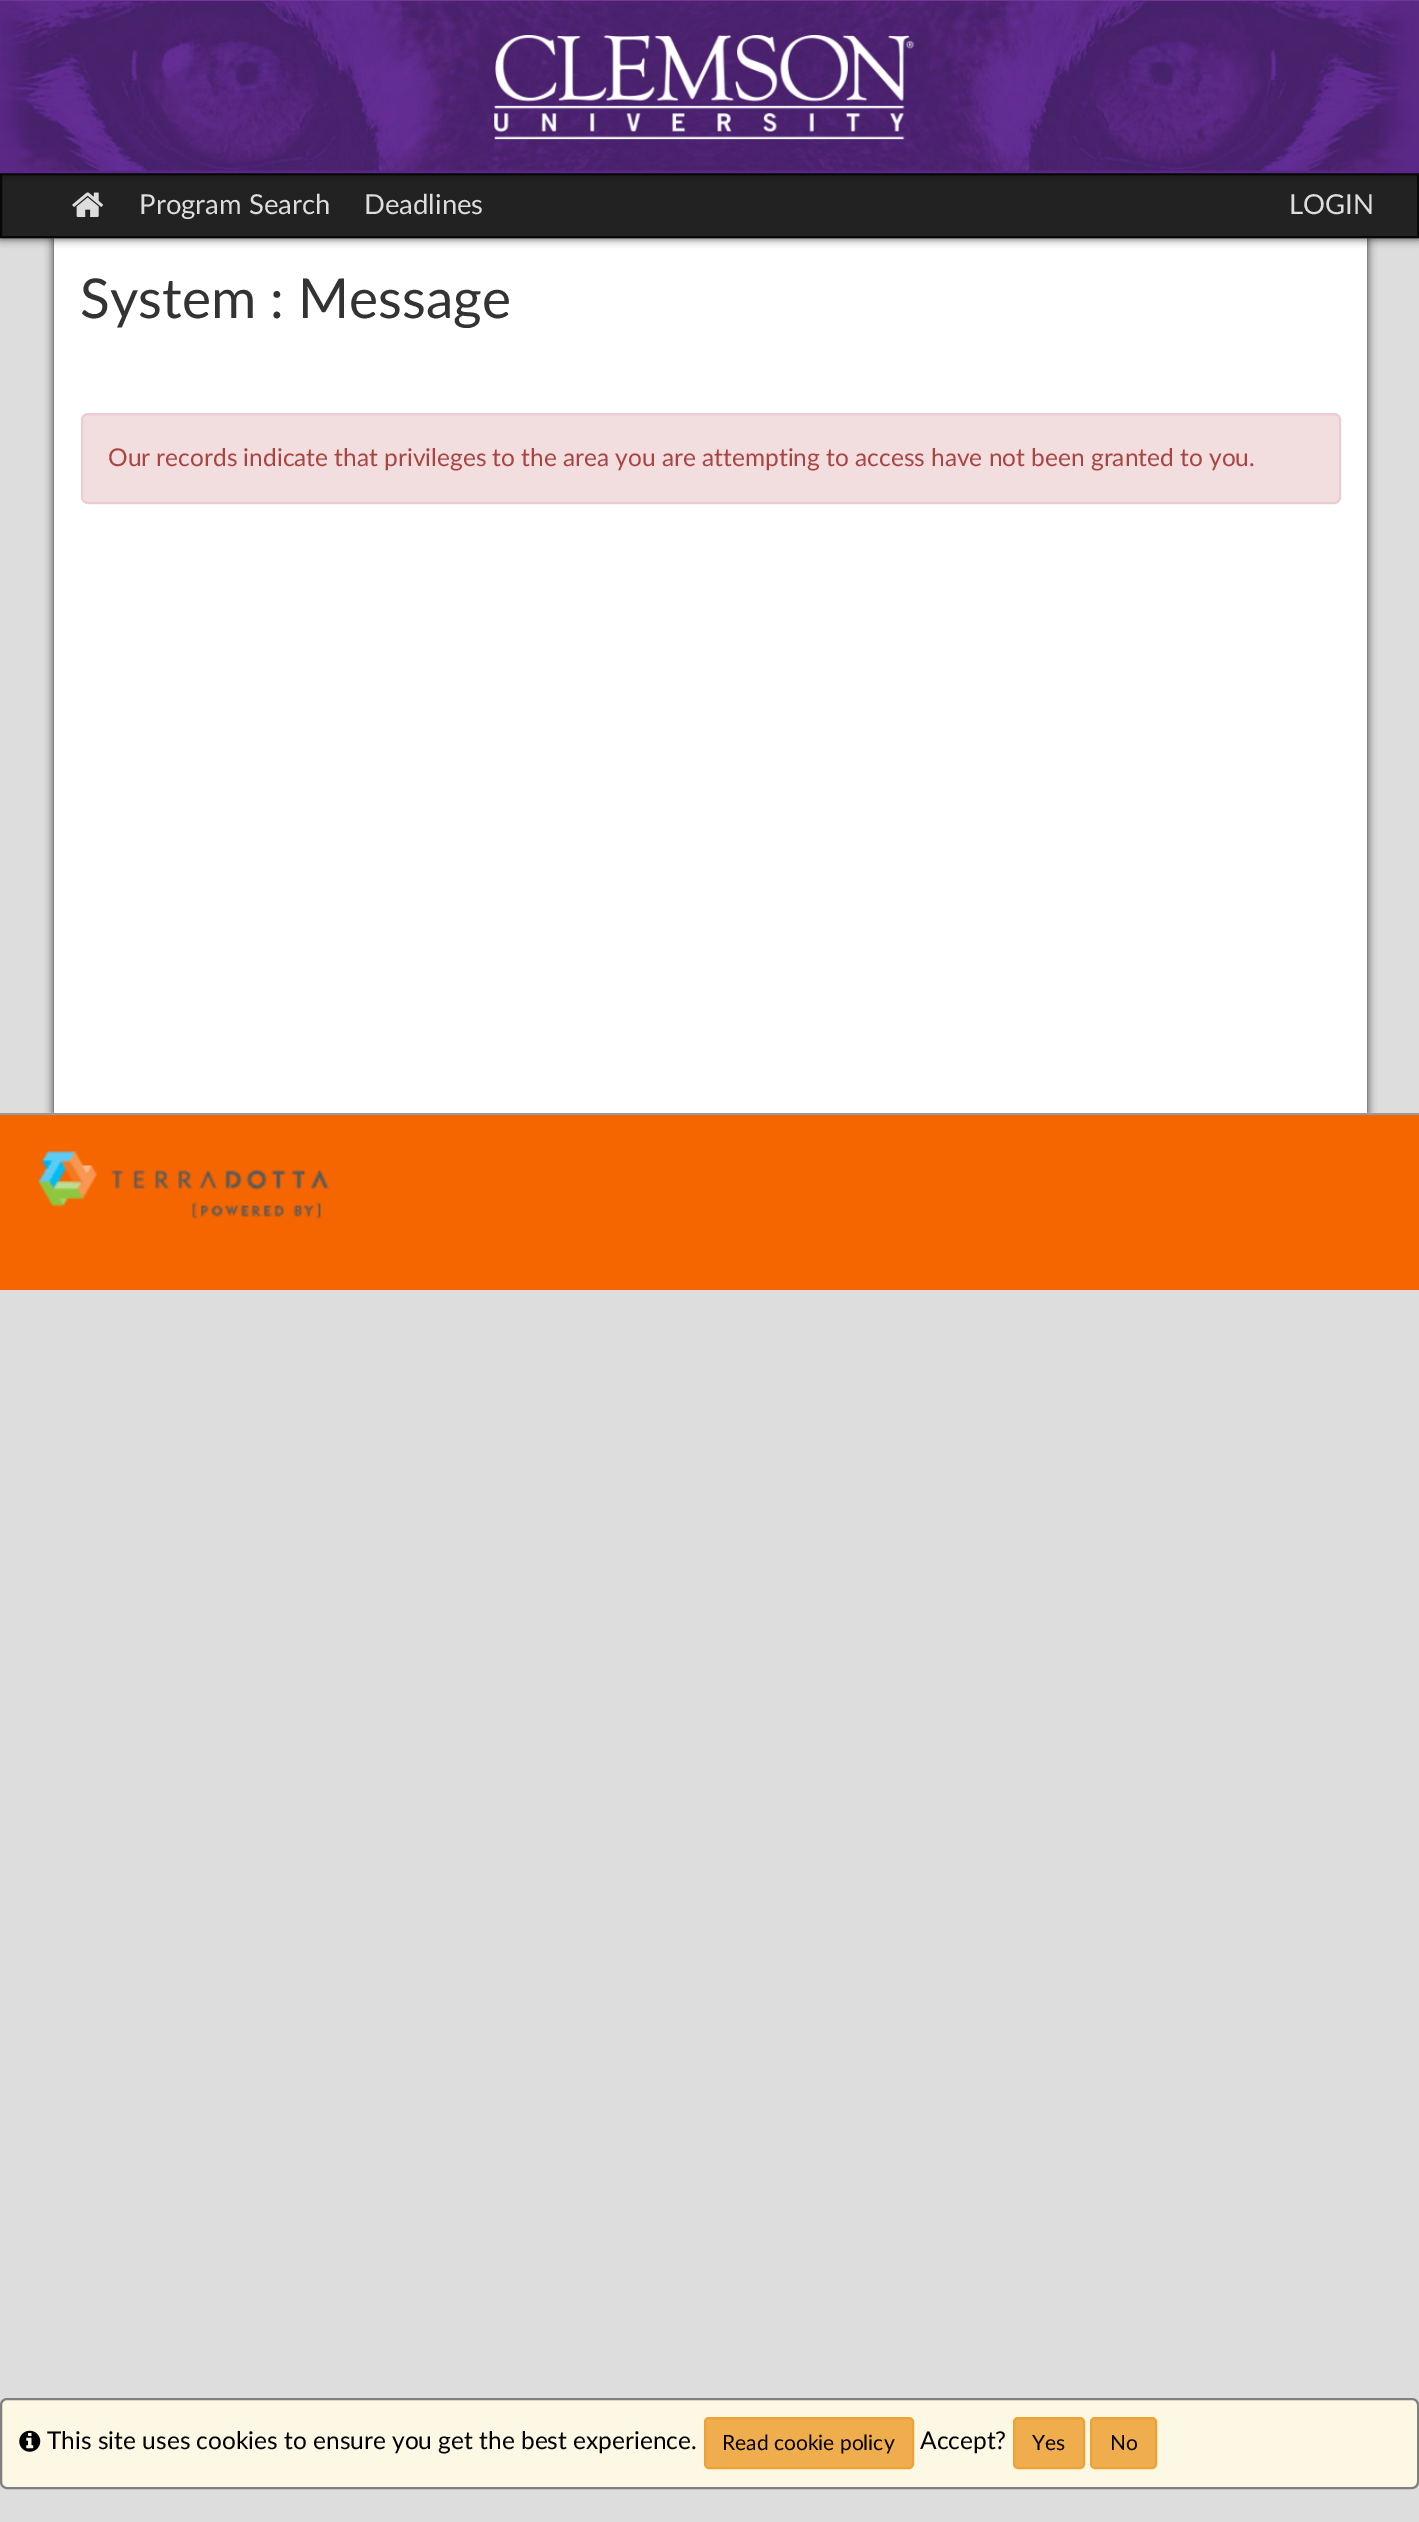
%!PS-Adobe-3.0
%%BoundingBox: 0 0 1419 2522
%%LanguageLevel: 3
%%Pages: 1
%%EndComments
%%BeginProlog
/setink { 3 { 255 div 3 1 roll } repeat setrgbcolor } def
/usefont { [ exch dup neg 0 0 3 -1 roll 0 0 ] selectfont } def
/drawtext { setink usefont moveto show } def
/fillbox { setink rectfill } def
/setalpha { dup .setfillconstantalpha .setstrokeconstantalpha } def
/rrect { 5 dict begin { /r /h /w /y /x } { exch def } forall
  x r add y moveto x w add y 2 copy h add r arct x w add y h add x 1 index r arct
  x y h add x y r arct x y 2 copy exch w add exch r arct closepath end } def
/softshadow { 12 dict begin { /a /b /q /h /w /y /x } { exch def } forall gsave /was 0 def
  9 -2 -9 { dup b mul 4 div /e exch def 1 sub .425 mul 2.718 exch exp 1 add a .99 .min exch div /now exch def
    1 1 now sub 1 was sub div sub setalpha /was now def
    w h .min e 2 mul add 0 gt { x e sub y e sub w e 2 mul add h e 2 mul add
      q e add b .6 mul add w h .min 2 div e add .min 0 .max rrect fill } if } for grestore end } def
/drawimage { 5 dict begin { /h /w /y /x /name } { exch def } forall
  gsave x y translate w h scale
  w h 8 [w 0 0 h 0 0] name (r) file false 3 colorimage grestore end } def
%%EndProlog
%%BeginSetup
<< /PageSize [1419 2522] /PageUsesTransparency true >> setpagedevice
%%EndSetup
%%Page: 1 1
0 .pushpdf14devicefilter
0 2522 translate 1 -1 scale
4 setmiterlimit
0 0 1419 2522 221 221 221 fillbox
0 0 0 setink
54 238 1313 875 0 4.5 0.8 softshadow
54 238 1313 875 255 255 255 fillbox
0 0 0 setink
0 173 1419 65 0 4.5 0.8 softshadow
34 34 34 setink
1 174 moveto 1418 174 lineto 1418 237 lineto 1 237 lineto closepath gsave fill grestore
8 8 8 setink
2 setlinewidth
stroke
0 0 0 setink
0 0 1419 173 0 4.5 0.8 softshadow
(assets/img1.rgb) 0 0 1419 174 drawimage
(assets/img2.rgb) 72 192 32 25 drawimage
(Program Search) 139 214 /Lato-Regular 27.5 221 221 221 drawtext
(Deadlines) 364 214 /Lato-Regular 27.5 221 221 221 drawtext
(LOGIN) 1289 214 /Lato-Regular 27.5 221 221 221 drawtext
(System : Message) 80 318 /Lato-Regular 55 51 51 51 drawtext
242 222 222 setink
82 414 1258 89 6 rrect gsave fill grestore
235 204 209 setink
stroke
(Our records indicate that privileges to the area you are attempting to access have not been granted to you.) 108 466 /Lato-Regular 24.5 169 68 66 drawtext
0 1115 1419 175 245 102 0 fillbox
0 1113 1419 2 153 153 153 fillbox
(assets/img3.rgb) 38 1151 291 68 drawimage
252 248 227 setink
1 2399 1417 89 6 rrect gsave fill grestore
128 128 128 setink
stroke
(assets/img4.rgb) 19 2430 22 22 drawimage
(This site uses cookies to ensure you get the best experience.) 47 2449 /Lato-Regular 24.5 0 0 0 drawtext
240 173 78 setink
705 2418 208 50 4 rrect gsave fill grestore
238 162 54 setink
stroke
(Read cookie policy) 722 2450 /Lato-Regular 21 0 0 0 drawtext
(Accept?) 920 2449 /Lato-Regular 24.5 0 0 0 drawtext
240 173 78 setink
1014 2418 70 50 4 rrect gsave fill grestore
238 162 54 setink
stroke
(Yes) 1032 2450 /Lato-Regular 21 0 0 0 drawtext
240 173 78 setink
1091 2418 65 50 4 rrect gsave fill grestore
238 162 54 setink
stroke
(No) 1110 2450 /Lato-Regular 21 0 0 0 drawtext
.poppdf14devicefilter showpage
%%EOF
